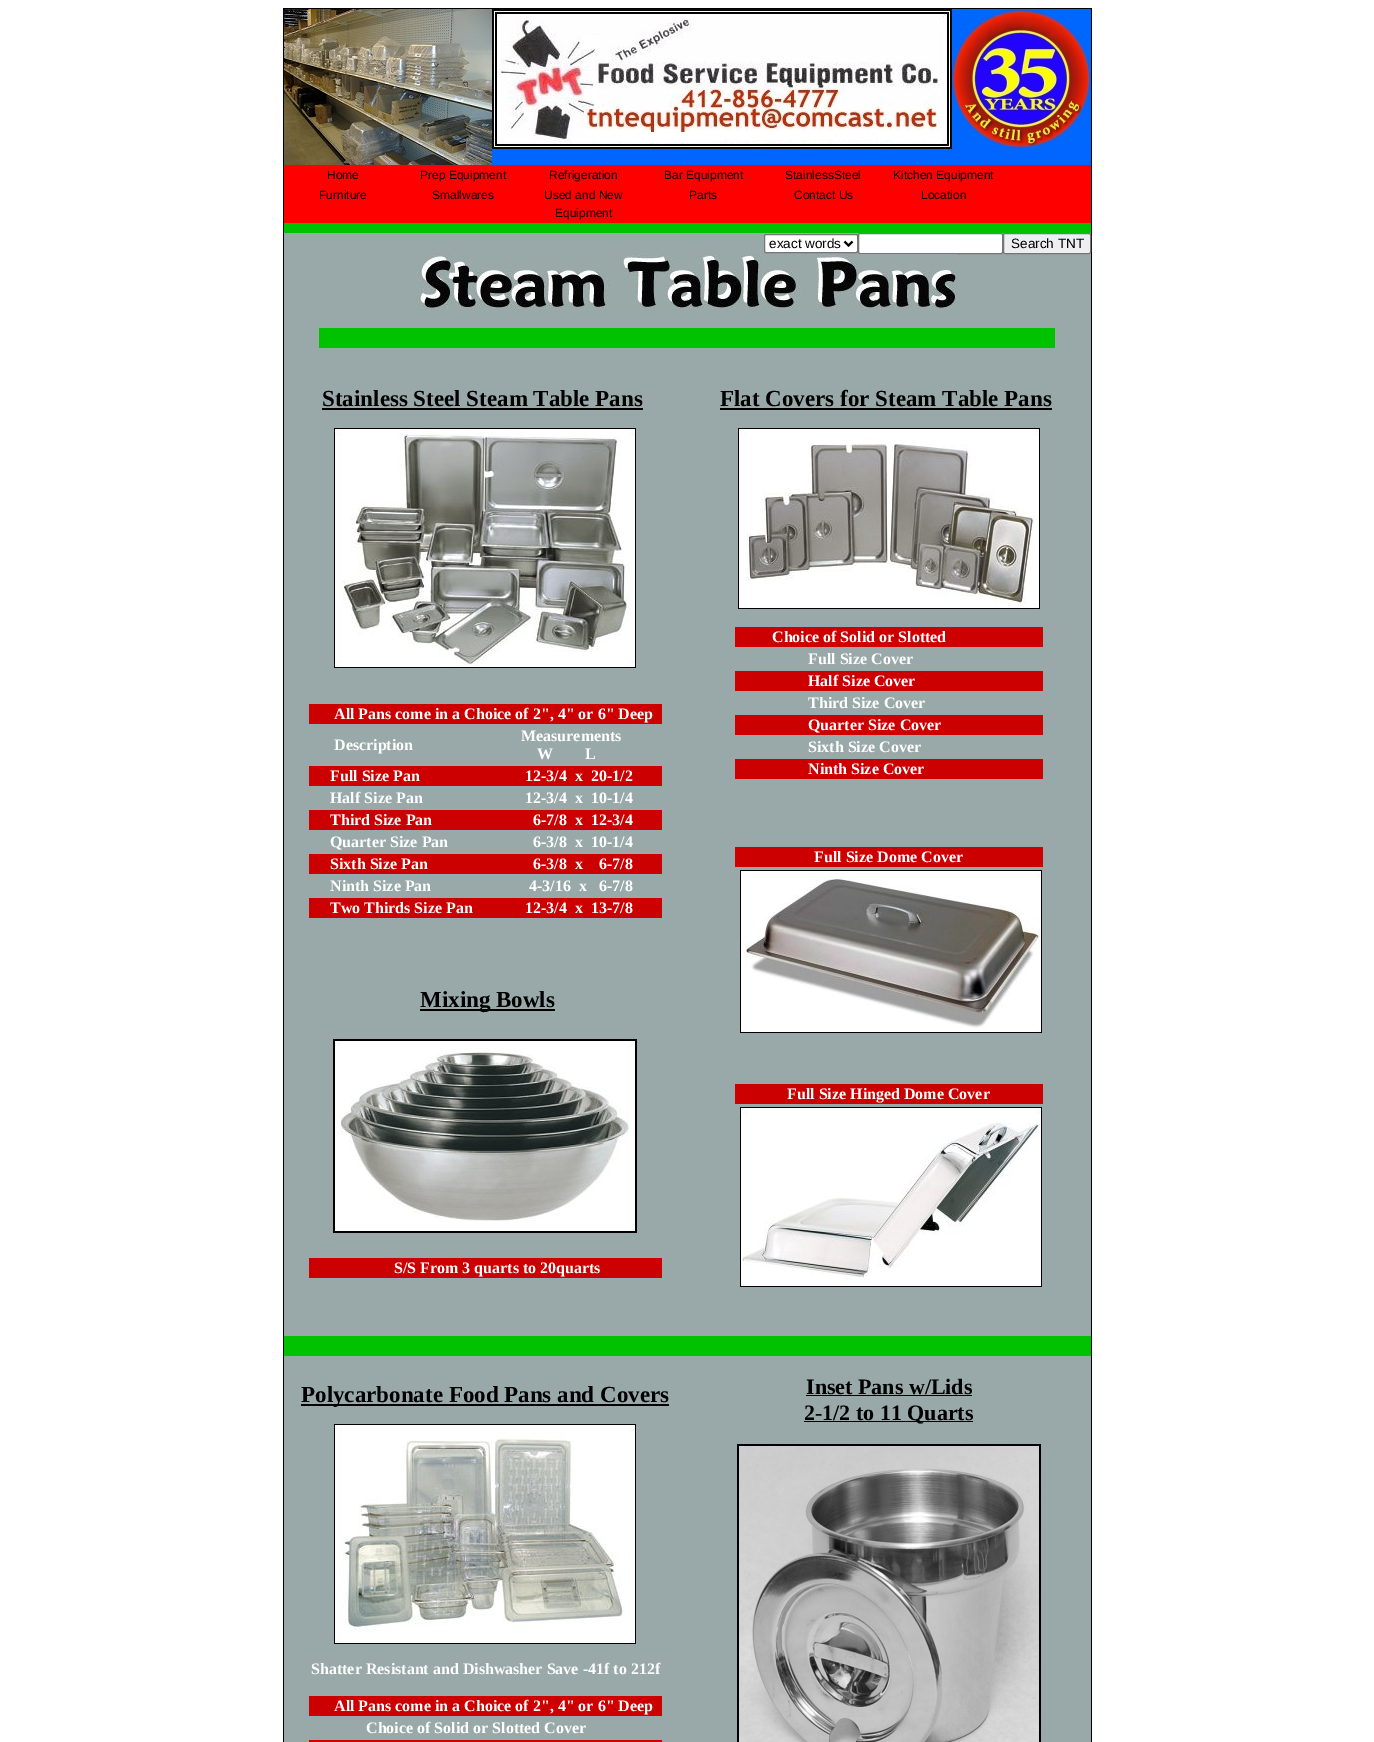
%!PS-Adobe-3.0
%%BoundingBox: 0 0 1374 1742
%%LanguageLevel: 3
%%Pages: 1
%%EndComments
%%BeginProlog
/setink { 3 { 255 div 3 1 roll } repeat setrgbcolor } def
/usefont { [ exch dup neg 0 0 3 -1 roll 0 0 ] selectfont } def
/drawtext { setink usefont moveto show } def
/fillbox { setink rectfill } def
/rrect { 5 dict begin { /r /h /w /y /x } { exch def } forall
  x r add y moveto x w add y 2 copy h add r arct x w add y h add x 1 index r arct
  x y h add x y r arct x y 2 copy exch w add exch r arct closepath end } def
/drawimage { 5 dict begin { /h /w /y /x /name } { exch def } forall
  gsave x y translate w h scale
  w h 8 [w 0 0 h 0 0] name (r) file false 3 colorimage grestore end } def
%%EndProlog
%%BeginSetup
<< /PageSize [1374 1742] >> setpagedevice
%%EndSetup
%%Page: 1 1
0 1742 translate 1 -1 scale
4 setmiterlimit
0 0 1374 1742 255 255 255 fillbox
283 8 809 1 0 0 0 fillbox
1091 8 1 1734 0 0 0 fillbox
283 8 1 1734 0 0 0 fillbox
492 149 599 16 0 102 255 fillbox
(assets/img1.rgb) 284 9 208 156 drawimage
(assets/img2.rgb) 492 9 460 140 drawimage
(assets/img3.rgb) 952 9 139 140 drawimage
284 165 807 58 255 0 0 fillbox
(Home) 327 179 /LiberationSans-Regular 12 0 0 0 drawtext
(Prep Equipment) 420 179 /LiberationSans-Regular 12 0 0 0 drawtext
(Refrigeration) 549 179 /LiberationSans-Regular 12 0 0 0 drawtext
(Bar Equipment) 664 179 /LiberationSans-Regular 12 0 0 0 drawtext
(StainlessSteel) 785 179 /LiberationSans-Regular 12 0 0 0 drawtext
(Kitchen Equipment) 893 179 /LiberationSans-Regular 12 0 0 0 drawtext
(Furniture) 319 199 /LiberationSans-Regular 12 0 0 0 drawtext
(Smallwares) 432 199 /LiberationSans-Regular 12 0 0 0 drawtext
(Used and New) 544 199 /LiberationSans-Regular 12 0 0 0 drawtext
(Equipment) 555 217 /LiberationSans-Regular 12 0 0 0 drawtext
(Parts) 689 199 /LiberationSans-Regular 12 0 0 0 drawtext
(Contact Us) 794 199 /LiberationSans-Regular 12 0 0 0 drawtext
(Location) 921 199 /LiberationSans-Regular 12 0 0 0 drawtext
284 223 807 10 0 194 0 fillbox
284 233 807 153 153 169 169 fillbox
255 255 255 setink
764.5 234.5 93 18 1.5 rrect gsave fill grestore
118 118 118 setink
stroke
0 0 0 setink
2 setlinewidth
844.5 241.5 moveto 848.5 245.5 lineto 852.5 241.5 lineto stroke
(exact words) 769 248 /LiberationSans-Regular 13.5 0 0 0 drawtext
255 255 255 setink
858.5 233.5 144 20 1.5 rrect gsave fill grestore
118 118 118 setink
1 setlinewidth
stroke
239 239 239 setink
1003.5 233.5 87 20 1.5 rrect gsave fill grestore
118 118 118 setink
stroke
(Search TNT) 1011 248 /LiberationSans-Regular 13.5 0 0 0 drawtext
(assets/img4.rgb) 417 254 540 54 drawimage
319 328 736 20 0 194 0 fillbox
284 386 807 950 153 169 169 fillbox
(Stainless Steel Steam Table Pans) 322 406 /LiberationSerif-Bold 23 0 0 0 drawtext
322 408 321 2 0 0 0 fillbox
(assets/img5.rgb) 334 428 302 240 drawimage
309 704 353 20 204 0 0 fillbox
(All Pans come in a Choice of 2", 4" or 6" Deep) 334 719 /LiberationSerif-Bold 16 255 255 255 drawtext
(Description) 334 750 /LiberationSerif-Bold 16 255 255 255 drawtext
(Measurements) 521 741 /LiberationSerif-Bold 16 255 255 255 drawtext
(W        L) 537 759 /LiberationSerif-Bold 16 255 255 255 drawtext
309 766 353 20 204 0 0 fillbox
(Full Size Pan) 330 781 /LiberationSerif-Bold 16 255 255 255 drawtext
(12-3/4  x  20-1/2) 525 781 /LiberationSerif-Bold 16 255 255 255 drawtext
(Half Size Pan) 330 803 /LiberationSerif-Bold 16 255 255 255 drawtext
(12-3/4  x  10-1/4) 525 803 /LiberationSerif-Bold 16 255 255 255 drawtext
309 810 353 20 204 0 0 fillbox
(Third Size Pan) 330 825 /LiberationSerif-Bold 16 255 255 255 drawtext
(6-7/8  x  12-3/4) 533 825 /LiberationSerif-Bold 16 255 255 255 drawtext
(Quarter Size Pan) 330 847 /LiberationSerif-Bold 16 255 255 255 drawtext
(6-3/8  x  10-1/4) 533 847 /LiberationSerif-Bold 16 255 255 255 drawtext
309 854 353 20 204 0 0 fillbox
(Sixth Size Pan) 330 869 /LiberationSerif-Bold 16 255 255 255 drawtext
(6-3/8  x    6-7/8) 533 869 /LiberationSerif-Bold 16 255 255 255 drawtext
(Ninth Size Pan) 330 891 /LiberationSerif-Bold 16 255 255 255 drawtext
(4-3/16  x   6-7/8) 529 891 /LiberationSerif-Bold 16 255 255 255 drawtext
309 898 353 20 204 0 0 fillbox
(Two Thirds Size Pan) 330 913 /LiberationSerif-Bold 16 255 255 255 drawtext
(12-3/4  x  13-7/8) 525 913 /LiberationSerif-Bold 16 255 255 255 drawtext
420 1009 135 2 0 0 0 fillbox
(Mixing Bowls) 420 1007 /LiberationSerif-Bold 23 0 0 0 drawtext
(assets/img6.rgb) 333 1039 304 194 drawimage
309 1258 353 20 204 0 0 fillbox
(S/S From 3 quarts to 20quarts) 394 1273 /LiberationSerif-Bold 16 255 255 255 drawtext
(Flat Covers for Steam Table Pans) 720 406 /LiberationSerif-Bold 23 0 0 0 drawtext
720 408 332 2 0 0 0 fillbox
(assets/img7.rgb) 738 428 302 181 drawimage
735 627 308 20 204 0 0 fillbox
(Choice of Solid or Slotted) 772 642 /LiberationSerif-Bold 16 255 255 255 drawtext
(Full Size Cover) 808 664 /LiberationSerif-Bold 16 255 255 255 drawtext
735 671 308 20 204 0 0 fillbox
(Half Size Cover) 808 686 /LiberationSerif-Bold 16 255 255 255 drawtext
(Third Size Cover) 808 708 /LiberationSerif-Bold 16 255 255 255 drawtext
735 715 308 20 204 0 0 fillbox
(Quarter Size Cover) 808 730 /LiberationSerif-Bold 16 255 255 255 drawtext
(Sixth Size Cover) 808 752 /LiberationSerif-Bold 16 255 255 255 drawtext
735 759 308 20 204 0 0 fillbox
(Ninth Size Cover) 808 774 /LiberationSerif-Bold 16 255 255 255 drawtext
735 847 308 20 204 0 0 fillbox
(Full Size Dome Cover) 814 862 /LiberationSerif-Bold 16 255 255 255 drawtext
(assets/img8.rgb) 740 870 302 163 drawimage
735 1084 308 20 204 0 0 fillbox
(Full Size Hinged Dome Cover) 787 1099 /LiberationSerif-Bold 16 255 255 255 drawtext
(assets/img9.rgb) 740 1107 302 180 drawimage
284 1336 807 20 0 194 0 fillbox
284 1356 807 386 153 169 169 fillbox
301 1404 368 2 0 0 0 fillbox
(Polycarbonate Food Pans and Covers) 301 1402 /LiberationSerif-Bold 23 0 0 0 drawtext
(assets/img10.rgb) 334 1424 302 220 drawimage
(Shatter Resistant and Dishwasher Save -41f to 212f) 311 1674 /LiberationSerif-Bold 16 255 255 255 drawtext
309 1696 353 20 204 0 0 fillbox
(All Pans come in a Choice of 2", 4" or 6" Deep) 334 1711 /LiberationSerif-Bold 16 255 255 255 drawtext
(Choice of Solid or Slotted Cover) 366 1733 /LiberationSerif-Bold 16 255 255 255 drawtext
309 1740 353 2 204 0 0 fillbox
(Inset Pans w/Lids) 806 1394 /LiberationSerif-Bold 22 0 0 0 drawtext
806 1395 166 1 0 0 0 fillbox
804 1421 169 1 0 0 0 fillbox
(2-1/2 to 11 Quarts) 804 1420 /LiberationSerif-Bold 22 0 0 0 drawtext
(assets/img11.rgb) 737 1444 304 298 drawimage
showpage
%%EOF
